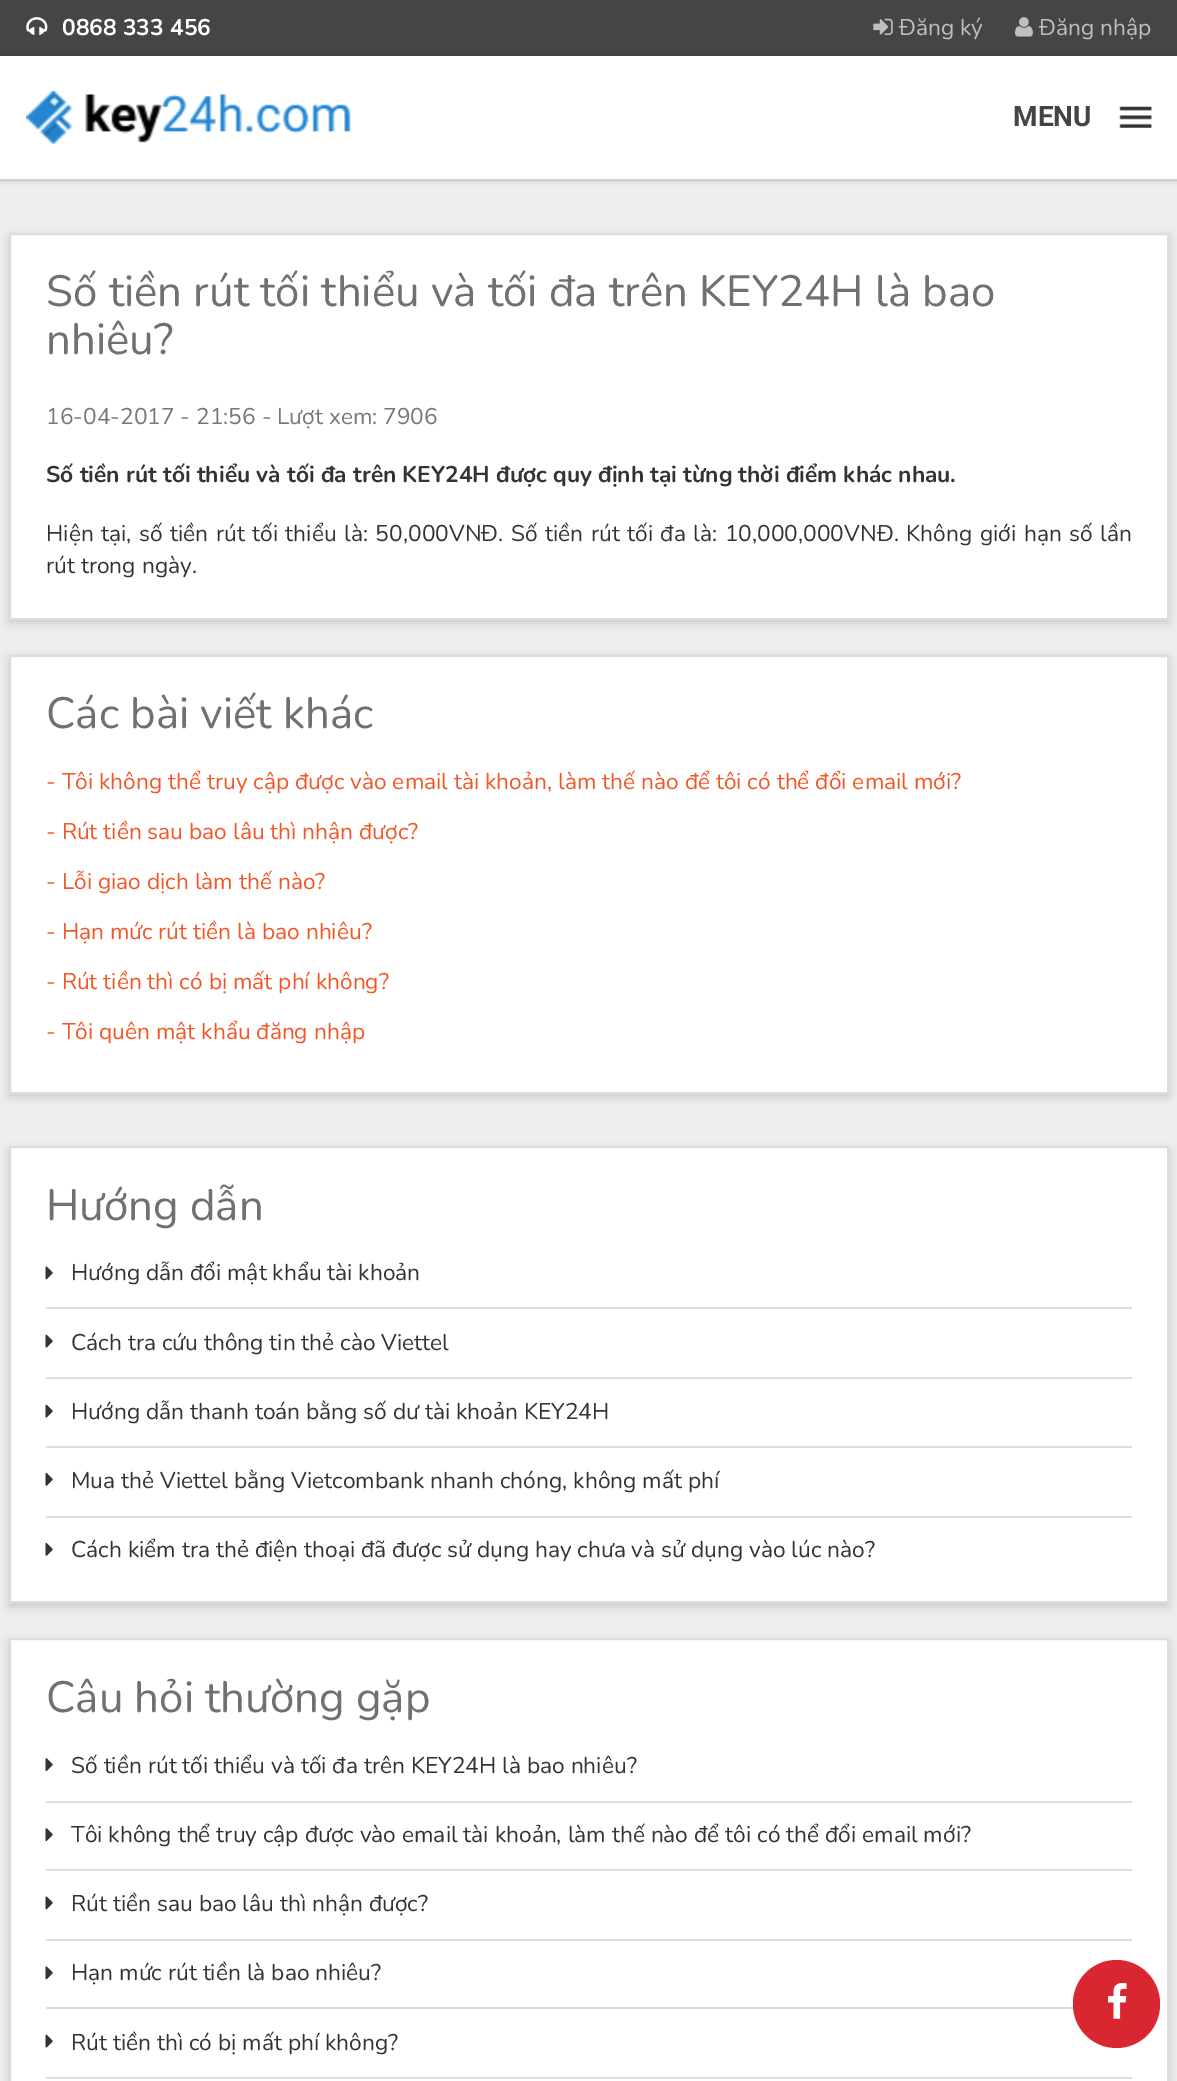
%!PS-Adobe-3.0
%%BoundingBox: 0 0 1177 2081
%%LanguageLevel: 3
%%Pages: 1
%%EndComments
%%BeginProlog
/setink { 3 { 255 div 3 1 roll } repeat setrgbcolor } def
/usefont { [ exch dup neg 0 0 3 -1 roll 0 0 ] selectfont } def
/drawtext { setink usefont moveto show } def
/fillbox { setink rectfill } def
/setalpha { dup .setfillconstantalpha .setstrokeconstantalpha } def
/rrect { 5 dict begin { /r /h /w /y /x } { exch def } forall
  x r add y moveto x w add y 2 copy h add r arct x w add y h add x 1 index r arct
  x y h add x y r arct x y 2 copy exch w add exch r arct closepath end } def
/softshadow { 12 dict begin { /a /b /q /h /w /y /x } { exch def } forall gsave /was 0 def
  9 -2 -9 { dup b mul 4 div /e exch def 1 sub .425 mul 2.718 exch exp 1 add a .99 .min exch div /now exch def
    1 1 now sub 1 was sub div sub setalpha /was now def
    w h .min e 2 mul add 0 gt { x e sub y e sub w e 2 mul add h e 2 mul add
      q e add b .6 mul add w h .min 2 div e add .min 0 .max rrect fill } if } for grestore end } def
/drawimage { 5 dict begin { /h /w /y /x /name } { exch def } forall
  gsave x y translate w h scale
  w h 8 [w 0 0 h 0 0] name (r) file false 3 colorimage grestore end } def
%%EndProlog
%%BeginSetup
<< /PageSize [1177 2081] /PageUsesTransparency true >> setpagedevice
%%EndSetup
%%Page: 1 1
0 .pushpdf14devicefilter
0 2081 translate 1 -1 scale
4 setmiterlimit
0 0 1177 2081 255 255 255 fillbox
0 0 1177 56 69 69 69 fillbox
(assets/img1.rgb) 26 17 22 18 drawimage
(0868 333 456) 62 35 /Nunito-Bold 22.75 255 255 255 drawtext
(assets/img2.rgb) 873 18 20 17 drawimage
(Đăng ký) 899 35 /Nunito-Regular 22.75 191 191 191 drawtext
(assets/img3.rgb) 1015 17 18 20 drawimage
(Đăng nhập) 1039 35 /Nunito-Regular 22.75 191 191 191 drawtext
0 180 1177 1901 238 238 238 fillbox
0 0 0 setink
0 58 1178 122 0 2.5 0.3 softshadow
0 56 1177 123 255 255 255 fillbox
(assets/img4.rgb) 26 91 325 53 drawimage
(assets/img5.rgb) 1119 106 33 22 drawimage
(MENU) 1013 126 /Roboto-Bold 28 68 68 68 drawtext
0 0 0 setink
9 236 1160 387 0 4.5 0.15 softshadow
255 255 255 setink
10 234 moveto 1168 234 lineto 1168 619 lineto 10 619 lineto closepath gsave fill grestore
221 221 221 setink
2 setlinewidth
stroke
(Số tiền rút tối thiểu và tối đa trên KEY24H là bao) 46 306 /Nunito-Regular 43.75 112 112 112 drawtext
(nhiêu?) 46 354 /Nunito-Regular 43.75 112 112 112 drawtext
(16-04-2017 - 21:56 - Lượt xem: 7906) 46 424 /Nunito-Regular 22.75 119 119 119 drawtext
(Số tiền rút tối thiểu và tối đa trên KEY24H được quy định tại từng thời điểm khác nhau.) 46 482 /Nunito-Bold 22.75 51 51 51 drawtext
/Nunito-Regular 22.75 usefont
46 541 moveto 1.6 0 32 (Hiện tại, số tiền rút tối thiểu là: 50,000VNĐ. Số tiền rút tối đa là: 10,000,000VNĐ. Không giới hạn số lần) widthshow
(rút trong ngày.) 46 573 /Nunito-Regular 22.75 51 51 51 drawtext
0 0 0 setink
9 658 1160 439 0 4.5 0.15 softshadow
255 255 255 setink
10 656 moveto 1168 656 lineto 1168 1093 lineto 10 1093 lineto closepath gsave fill grestore
221 221 221 setink
stroke
(Các bài viết khác) 46 728 /Nunito-Regular 43.75 112 112 112 drawtext
(- Tôi không thể truy cập được vào email tài khoản, làm thế nào để tôi có thể đổi email mới?) 46 789 /Nunito-Regular 22.75 241 86 38 drawtext
(- Rút tiền sau bao lâu thì nhận được?) 46 839 /Nunito-Regular 22.75 241 86 38 drawtext
(- Lỗi giao dịch làm thế nào?) 46 889 /Nunito-Regular 22.75 241 86 38 drawtext
(- Hạn mức rút tiền là bao nhiêu?) 46 939 /Nunito-Regular 22.75 241 86 38 drawtext
(- Rút tiền thì có bị mất phí không?) 46 989 /Nunito-Regular 22.75 241 86 38 drawtext
(- Tôi quên mật khẩu đăng nhập) 46 1039 /Nunito-Regular 22.75 241 86 38 drawtext
0 0 0 setink
9 1150 1160 457 0 4.5 0.15 softshadow
255 255 255 setink
10 1147 moveto 1168 1147 lineto 1168 1602 lineto 10 1602 lineto closepath gsave fill grestore
221 221 221 setink
stroke
(Hướng dẫn) 46 1220 /Nunito-Regular 43.75 112 112 112 drawtext
46 1307 1086 2 221 221 221 fillbox
(assets/img6.rgb) 45 1266 8 14 drawimage
(Hướng dẫn đổi mật khẩu tài khoản) 71 1280 /Nunito-Regular 22.75 51 51 51 drawtext
46 1377 1086 2 221 221 221 fillbox
(assets/img7.rgb) 45 1334 8 14 drawimage
(Cách tra cứu thông tin thẻ cào Viettel) 71 1350 /Nunito-Regular 22.75 51 51 51 drawtext
46 1446 1086 2 221 221 221 fillbox
(assets/img7.rgb) 45 1404 8 14 drawimage
(Hướng dẫn thanh toán bằng số dư tài khoản KEY24H) 71 1419 /Nunito-Regular 22.75 51 51 51 drawtext
46 1516 1086 2 221 221 221 fillbox
(assets/img8.rgb) 45 1472 8 14 drawimage
(Mua thẻ Viettel bằng Vietcombank nhanh chóng, không mất phí) 71 1488 /Nunito-Regular 22.75 51 51 51 drawtext
(assets/img8.rgb) 45 1542 8 14 drawimage
(Cách kiểm tra thẻ điện thoại đã được sử dụng hay chưa và sử dụng vào lúc nào?) 71 1557 /Nunito-Regular 22.75 51 51 51 drawtext
0 0 0 setink
9 1642 1160 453 0 4.5 0.15 softshadow
255 255 255 setink
10 1639 moveto 1168 1639 lineto 1168 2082 lineto 10 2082 lineto closepath gsave fill grestore
221 221 221 setink
stroke
(Câu hỏi thường gặp) 46 1712 /Nunito-Regular 43.75 112 112 112 drawtext
46 1801 1086 2 221 221 221 fillbox
(assets/img9.rgb) 45 1758 8 14 drawimage
(Số tiền rút tối thiểu và tối đa trên KEY24H là bao nhiêu?) 71 1773 /Nunito-Regular 22.75 51 51 51 drawtext
46 1869 1086 2 221 221 221 fillbox
(assets/img9.rgb) 45 1828 8 14 drawimage
(Tôi không thể truy cập được vào email tài khoản, làm thế nào để tôi có thể đổi email mới?) 71 1842 /Nunito-Regular 22.75 51 51 51 drawtext
46 1939 1086 2 221 221 221 fillbox
(assets/img6.rgb) 45 1896 8 14 drawimage
(Rút tiền sau bao lâu thì nhận được?) 71 1911 /Nunito-Regular 22.75 51 51 51 drawtext
46 2007 1028 2 221 221 221 fillbox
(assets/img6.rgb) 45 1966 8 14 drawimage
(Hạn mức rút tiền là bao nhiêu?) 71 1980 /Nunito-Regular 22.75 51 51 51 drawtext
46 2077 1086 2 221 221 221 fillbox
(assets/img7.rgb) 45 2034 8 14 drawimage
(Rút tiền thì có bị mất phí không?) 71 2050 /Nunito-Regular 22.75 51 51 51 drawtext
216 39 49 setink
1073 1960 87 88 43.5 rrect fill
(assets/img10.rgb) 1108 1983 19 36 drawimage
.poppdf14devicefilter showpage
%%EOF
